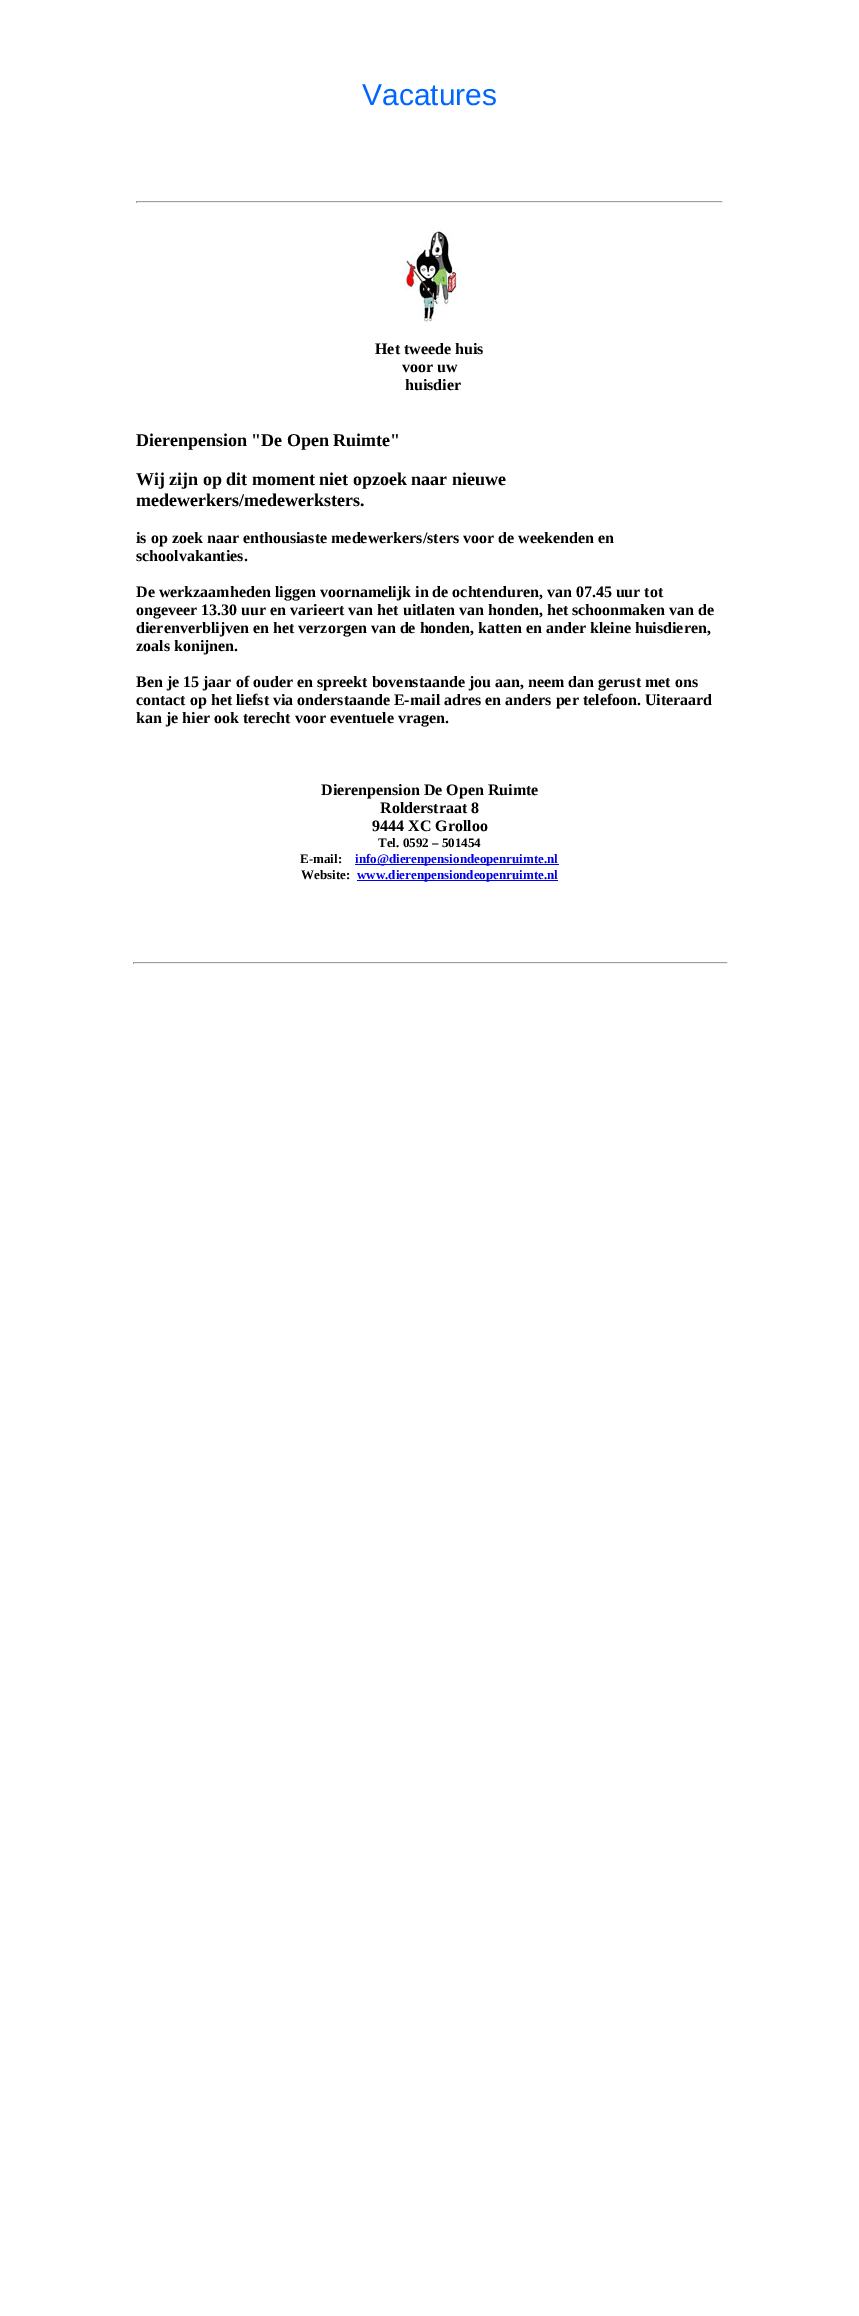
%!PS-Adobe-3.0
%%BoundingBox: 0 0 859 2316
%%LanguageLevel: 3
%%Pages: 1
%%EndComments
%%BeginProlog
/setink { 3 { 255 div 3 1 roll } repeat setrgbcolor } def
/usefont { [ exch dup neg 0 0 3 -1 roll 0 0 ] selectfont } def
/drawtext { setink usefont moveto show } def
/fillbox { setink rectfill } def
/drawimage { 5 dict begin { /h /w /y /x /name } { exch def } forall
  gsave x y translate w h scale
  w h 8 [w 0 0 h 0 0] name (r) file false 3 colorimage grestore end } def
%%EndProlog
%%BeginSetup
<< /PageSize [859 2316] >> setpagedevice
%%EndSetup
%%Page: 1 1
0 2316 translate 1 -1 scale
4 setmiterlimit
0 0 859 2316 255 255 255 fillbox
(Vacatures) 362 105 /LiberationSans-Regular 30 0 102 255 drawtext
136 201 587 1 159 159 159 fillbox
722 201 1 2 238 238 238 fillbox
136 202 587 1 238 238 238 fillbox
136 201 1 2 159 159 159 fillbox
(assets/img1.rgb) 404 227 56 95 drawimage
(Het tweede huis) 375 354 /LiberationSerif-Bold 16 0 0 0 drawtext
(voor uw) 402 372 /LiberationSerif-Bold 16 0 0 0 drawtext
(huisdier) 405 390 /LiberationSerif-Bold 16 0 0 0 drawtext
(Dierenpension "De Open Ruimte") 136 446 /LiberationSerif-Bold 18 0 0 0 drawtext
(Wij zijn op dit moment niet opzoek naar nieuwe) 136 485 /LiberationSerif-Bold 18 0 0 0 drawtext
(medewerkers/medewerksters.) 136 506 /LiberationSerif-Bold 18 0 0 0 drawtext
(is op zoek naar enthousiaste medewerkers/sters voor de weekenden en) 136 543 /LiberationSerif-Bold 16 0 0 0 drawtext
(schoolvakanties.) 136 561 /LiberationSerif-Bold 16 0 0 0 drawtext
(De werkzaamheden liggen voornamelijk in de ochtenduren, van 07.45 uur tot) 136 597 /LiberationSerif-Bold 16 0 0 0 drawtext
(ongeveer 13.30 uur en varieert van het uitlaten van honden, het schoonmaken van de) 136 615 /LiberationSerif-Bold 16 0 0 0 drawtext
(dierenverblijven en het verzorgen van de honden, katten en ander kleine huisdieren,) 136 633 /LiberationSerif-Bold 16 0 0 0 drawtext
(zoals konijnen.) 136 651 /LiberationSerif-Bold 16 0 0 0 drawtext
(Ben je 15 jaar of ouder en spreekt bovenstaande jou aan, neem dan gerust met ons) 136 687 /LiberationSerif-Bold 16 0 0 0 drawtext
(contact op het liefst via onderstaande E-mail adres en anders per telefoon. Uiteraard) 136 705 /LiberationSerif-Bold 16 0 0 0 drawtext
(kan je hier ook terecht voor eventuele vragen.) 136 723 /LiberationSerif-Bold 16 0 0 0 drawtext
(Dierenpension De Open Ruimte) 321 795 /LiberationSerif-Bold 16 0 0 0 drawtext
(Rolderstraat 8) 380 813 /LiberationSerif-Bold 16 0 0 0 drawtext
(9444 XC Grolloo) 372 831 /LiberationSerif-Bold 16 0 0 0 drawtext
(Tel. 0592 – 501454) 378 847 /LiberationSerif-Bold 13 0 0 0 drawtext
(E-mail:) 300 863 /LiberationSerif-Bold 13 0 0 0 drawtext
355 864 204 1 0 0 238 fillbox
(info@dierenpensiondeopenruimte.nl) 355 863 /LiberationSerif-Bold 13 0 0 238 drawtext
(Website:) 301 879 /LiberationSerif-Bold 13 0 0 0 drawtext
357 880 201 1 0 0 238 fillbox
(www.dierenpensiondeopenruimte.nl) 357 879 /LiberationSerif-Bold 13 0 0 238 drawtext
133 962 595 1 159 159 159 fillbox
727 962 1 2 238 238 238 fillbox
133 963 595 1 238 238 238 fillbox
133 962 1 2 159 159 159 fillbox
showpage
%%EOF
